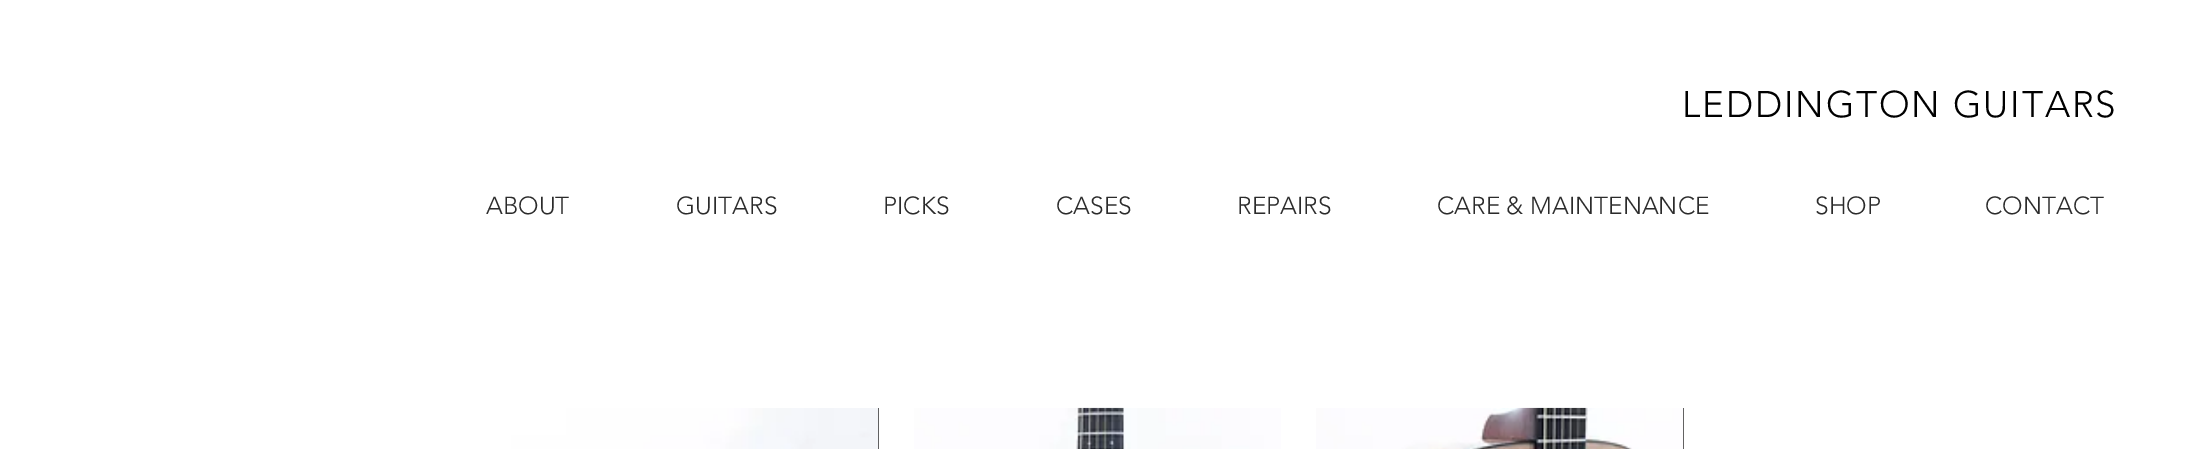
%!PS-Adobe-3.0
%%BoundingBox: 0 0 2194 449
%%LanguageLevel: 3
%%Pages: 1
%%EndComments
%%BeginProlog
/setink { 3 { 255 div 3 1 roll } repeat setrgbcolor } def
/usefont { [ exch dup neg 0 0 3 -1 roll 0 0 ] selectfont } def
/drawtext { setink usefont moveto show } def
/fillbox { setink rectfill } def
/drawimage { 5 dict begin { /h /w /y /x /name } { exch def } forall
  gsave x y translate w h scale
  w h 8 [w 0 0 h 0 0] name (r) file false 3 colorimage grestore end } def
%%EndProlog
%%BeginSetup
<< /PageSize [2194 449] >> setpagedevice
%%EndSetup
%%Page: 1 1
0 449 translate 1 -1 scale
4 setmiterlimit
0 0 2194 449 255 255 255 fillbox
/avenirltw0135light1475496-Light 36.75 usefont
0 0 0 setink
1682 117 moveto 1.8 0 (LEDDINGTON GUITARS) ashow
(ABOUT) 486 214 /avenirltw0135light1475496-Light 24.5 43 43 43 drawtext
(GUITARS) 676 214 /avenirltw0135light1475496-Light 24.5 43 43 43 drawtext
(PICKS) 883 214 /avenirltw0135light1475496-Light 24.5 43 43 43 drawtext
(CASES) 1056 214 /avenirltw0135light1475496-Light 24.5 43 43 43 drawtext
(REPAIRS) 1237 214 /avenirltw0135light1475496-Light 24.5 43 43 43 drawtext
(CARE & MAINTENANCE) 1437 214 /avenirltw0135light1475496-Light 24.5 43 43 43 drawtext
(SHOP) 1815 214 /avenirltw0135light1475496-Light 24.5 43 43 43 drawtext
(CONTACT) 1985 214 /avenirltw0135light1475496-Light 24.5 43 43 43 drawtext
878 408 1 41 47 46 46 fillbox
(assets/img1.rgb) 511 408 368 41 drawimage
(assets/img2.rgb) 914 407 367 42 drawimage
1683 408 1 41 47 46 46 fillbox
(assets/img3.rgb) 1316 407 368 42 drawimage
showpage
%%EOF
